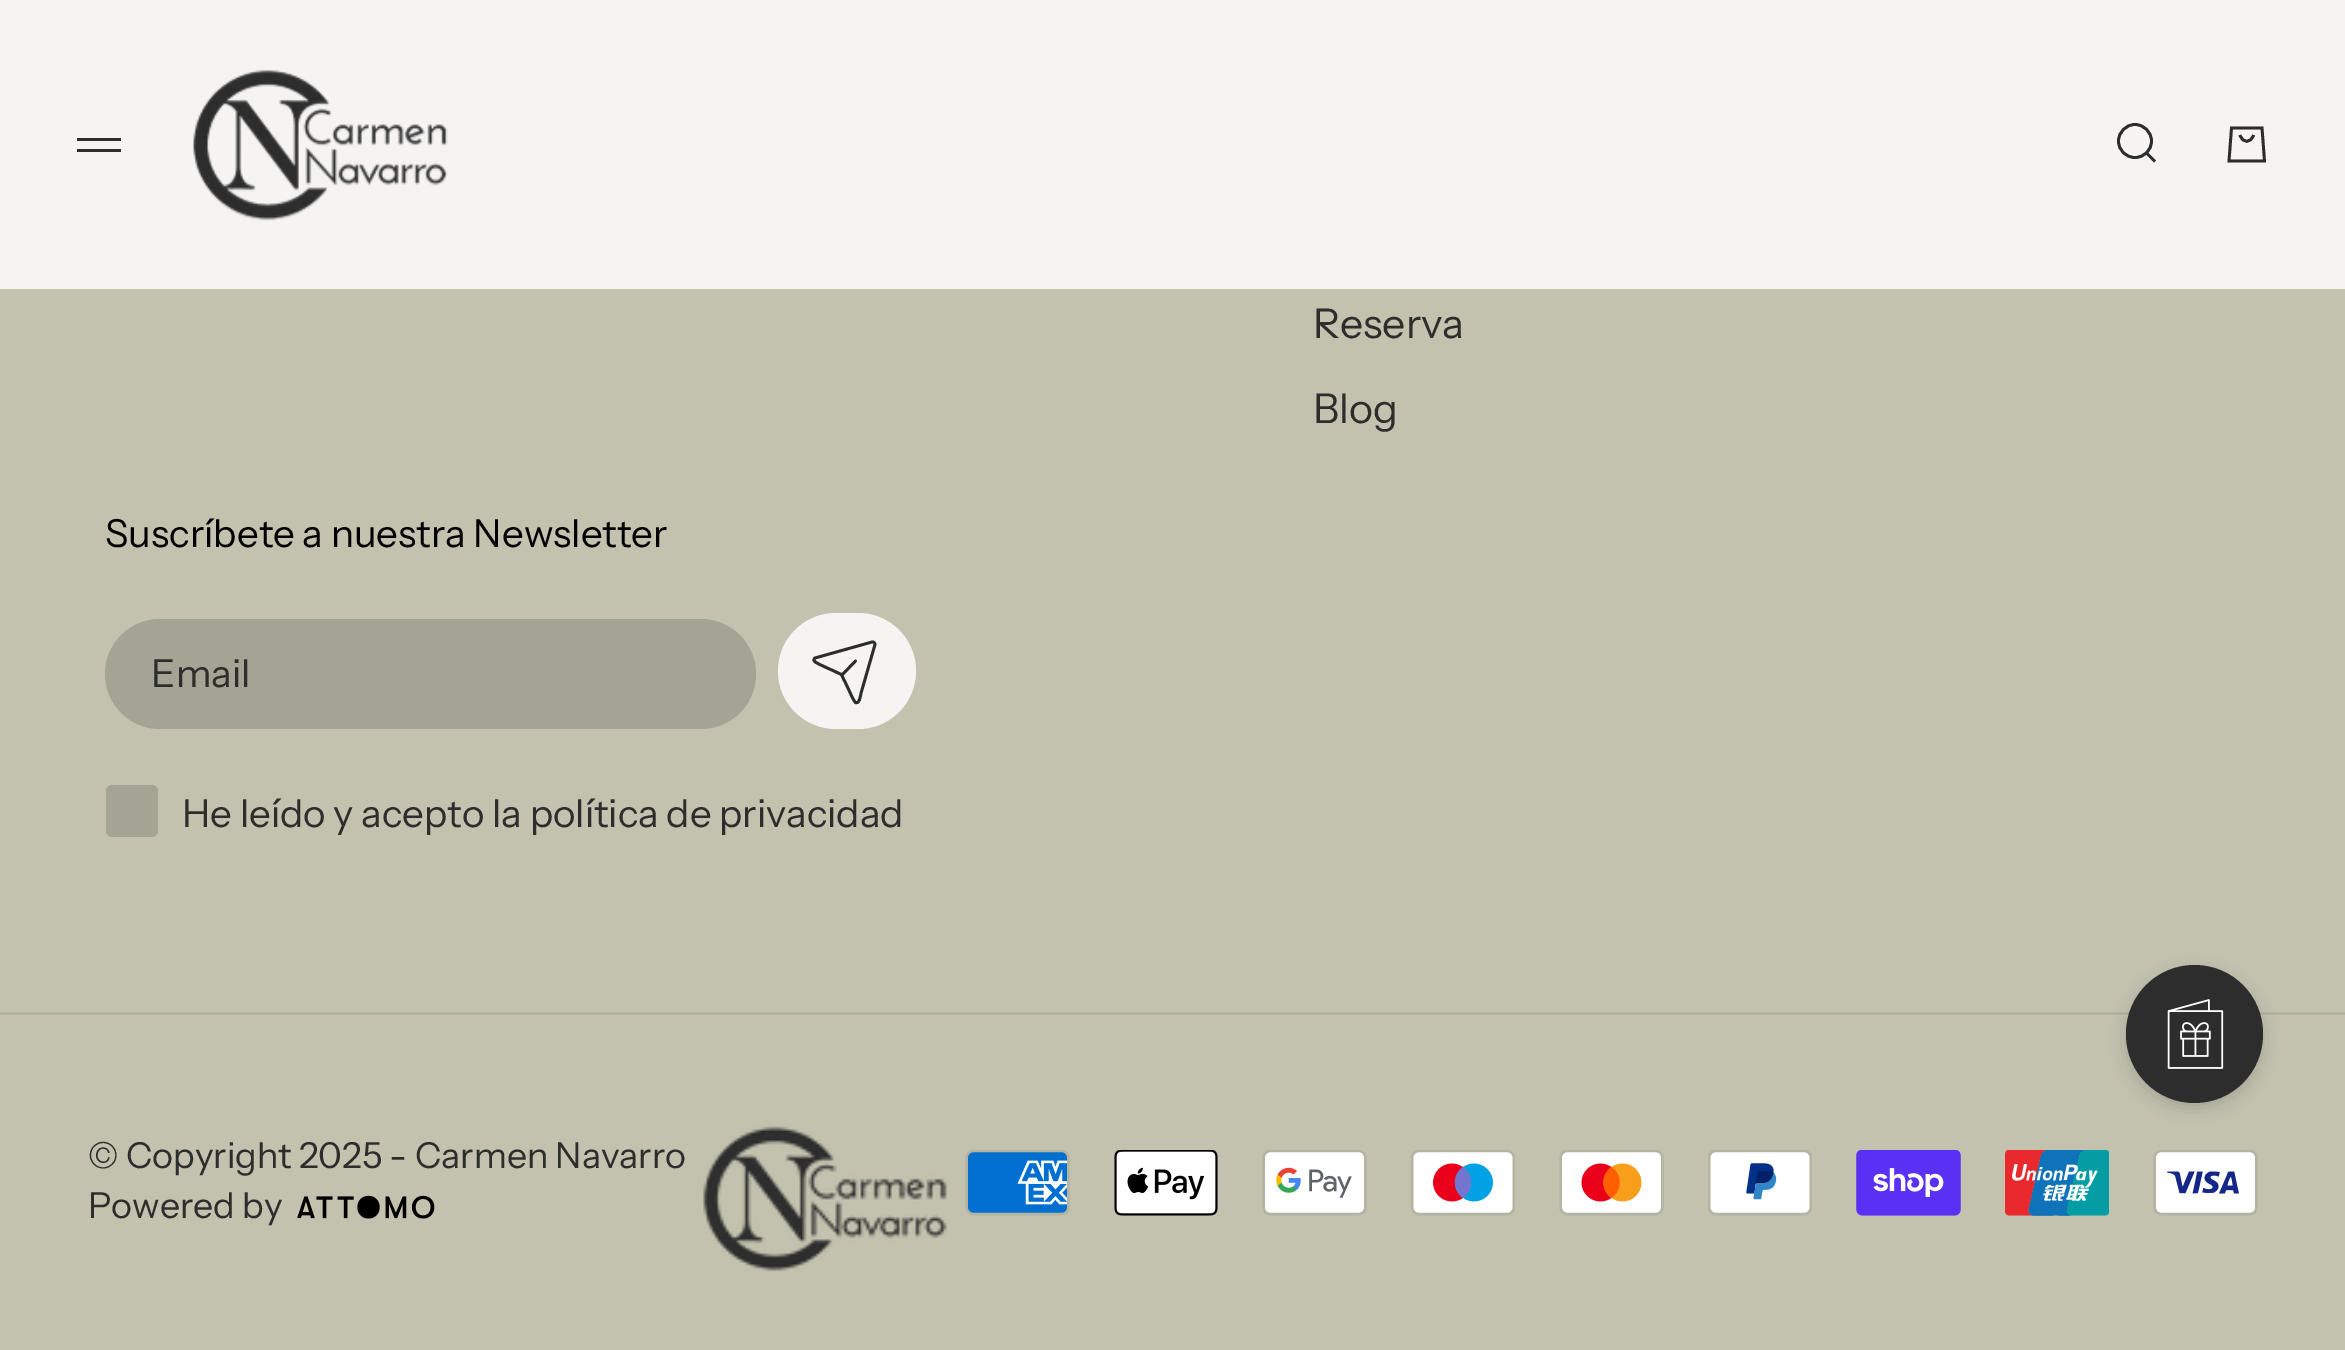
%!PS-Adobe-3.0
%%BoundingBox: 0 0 2345 1350
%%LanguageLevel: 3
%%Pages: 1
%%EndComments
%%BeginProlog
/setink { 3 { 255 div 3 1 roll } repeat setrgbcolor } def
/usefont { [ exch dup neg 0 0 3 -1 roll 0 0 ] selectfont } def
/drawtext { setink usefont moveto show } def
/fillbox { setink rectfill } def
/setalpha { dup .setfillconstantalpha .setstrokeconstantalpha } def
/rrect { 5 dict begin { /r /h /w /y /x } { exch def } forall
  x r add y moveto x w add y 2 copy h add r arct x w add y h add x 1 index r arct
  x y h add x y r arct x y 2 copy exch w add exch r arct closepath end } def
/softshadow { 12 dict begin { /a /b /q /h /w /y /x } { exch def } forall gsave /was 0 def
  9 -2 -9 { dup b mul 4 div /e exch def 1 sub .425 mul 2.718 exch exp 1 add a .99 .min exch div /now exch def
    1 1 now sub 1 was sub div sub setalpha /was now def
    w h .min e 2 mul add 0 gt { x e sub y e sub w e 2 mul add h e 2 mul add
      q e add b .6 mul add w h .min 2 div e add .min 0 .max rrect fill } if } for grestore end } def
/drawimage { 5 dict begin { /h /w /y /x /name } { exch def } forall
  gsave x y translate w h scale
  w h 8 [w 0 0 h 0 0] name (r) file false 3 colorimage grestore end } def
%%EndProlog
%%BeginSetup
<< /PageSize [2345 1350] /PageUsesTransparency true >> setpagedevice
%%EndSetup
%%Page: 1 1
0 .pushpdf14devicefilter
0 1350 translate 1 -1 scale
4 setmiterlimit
0 0 2345 1350 194 194 175 fillbox
0 0 2345 289 245 244 243 fillbox
77 138 44 3 45 45 45 fillbox
77 149 44 3 45 45 45 fillbox
(assets/img1.rgb) 193 70 255 151 drawimage
2.8 setlinewidth
2118.5 141 moveto 2118.5 150.5 2126 157.5 2135 157.5 curveto 2144 157.5 2151.5 150.5 2151.5 141 curveto 2151.5 132 2144 124.5 2135 124.5 curveto 2126 124.5 2118.5 132 2118.5 141 curveto closepath 2146.5 153 moveto 2155 161.5 lineto stroke
2229 161 moveto 2231.5 128 lineto 2262 128 lineto 2264.5 161 lineto closepath 2240 135 moveto 2242.5 143.5 2251 143.5 2253.5 135 curveto stroke
(Reserva) 1313 338 /InstrumentSans-Regular 41 45 45 45 drawtext
(Blog) 1313 423 /InstrumentSans-Regular 41 45 45 45 drawtext
(Suscríbete a nuestra Newsletter) 105 547 /InstrumentSans-Regular 38.5 0 0 0 drawtext
164 164 149 setink
105 619 651 110 55 rrect fill
(Email) 151 687 /InstrumentSans-Regular 38.5 45 45 45 drawtext
245 244 243 setink
778 613 138 116 58 rrect fill
45 45 45 setink
1 setlinecap
1 setlinejoin
872 642 moveto 815 658 lineto 810.5 661 818 663.5 824 666.5 curveto 841.5 674.5 lineto 844 680 lineto 846 683 853.5 701.5 855.5 702.5 curveto 859.5 704.5 860 697 861.5 691.5 curveto 875 644.5 lineto 875 643 873.5 641.5 872 642 curveto closepath stroke
842 675 moveto 855.5 661 lineto stroke
164 164 149 setink
106 785 52 52 6 rrect fill
(He leído y acepto la política de privacidad) 182 827 /InstrumentSans-Regular 38.5 45 45 45 drawtext
0 1012 2345 3 179 179 162 fillbox
(© Copyright 2025 - Carmen Navarro) 88 1168 /InstrumentSans-Regular 35.75 45 45 45 drawtext
(Powered by) 88 1218 /InstrumentSans-Regular 35.75 45 45 45 drawtext
(assets/img2.rgb) 297 1195 138 24 drawimage
(assets/img3.rgb) 703 1126 244 146 drawimage
(assets/img4.rgb) 965 1150 105 66 drawimage
(assets/img5.rgb) 1114 1150 104 66 drawimage
(assets/img6.rgb) 1262 1150 105 66 drawimage
(assets/img7.rgb) 1411 1150 104 66 drawimage
(assets/img8.rgb) 1559 1150 105 66 drawimage
(assets/img9.rgb) 1708 1150 104 66 drawimage
(assets/img10.rgb) 1856 1150 105 66 drawimage
(assets/img11.rgb) 2005 1150 104 66 drawimage
(assets/img12.rgb) 2153 1150 105 66 drawimage
0 0 0 setink
2126 971 137 137 68.5 8 0.15 softshadow
45 45 45 setink
2126 965 137 138 68.5 rrect fill
(assets/img13.rgb) 2167 999 57 70 drawimage
.poppdf14devicefilter showpage
%%EOF
